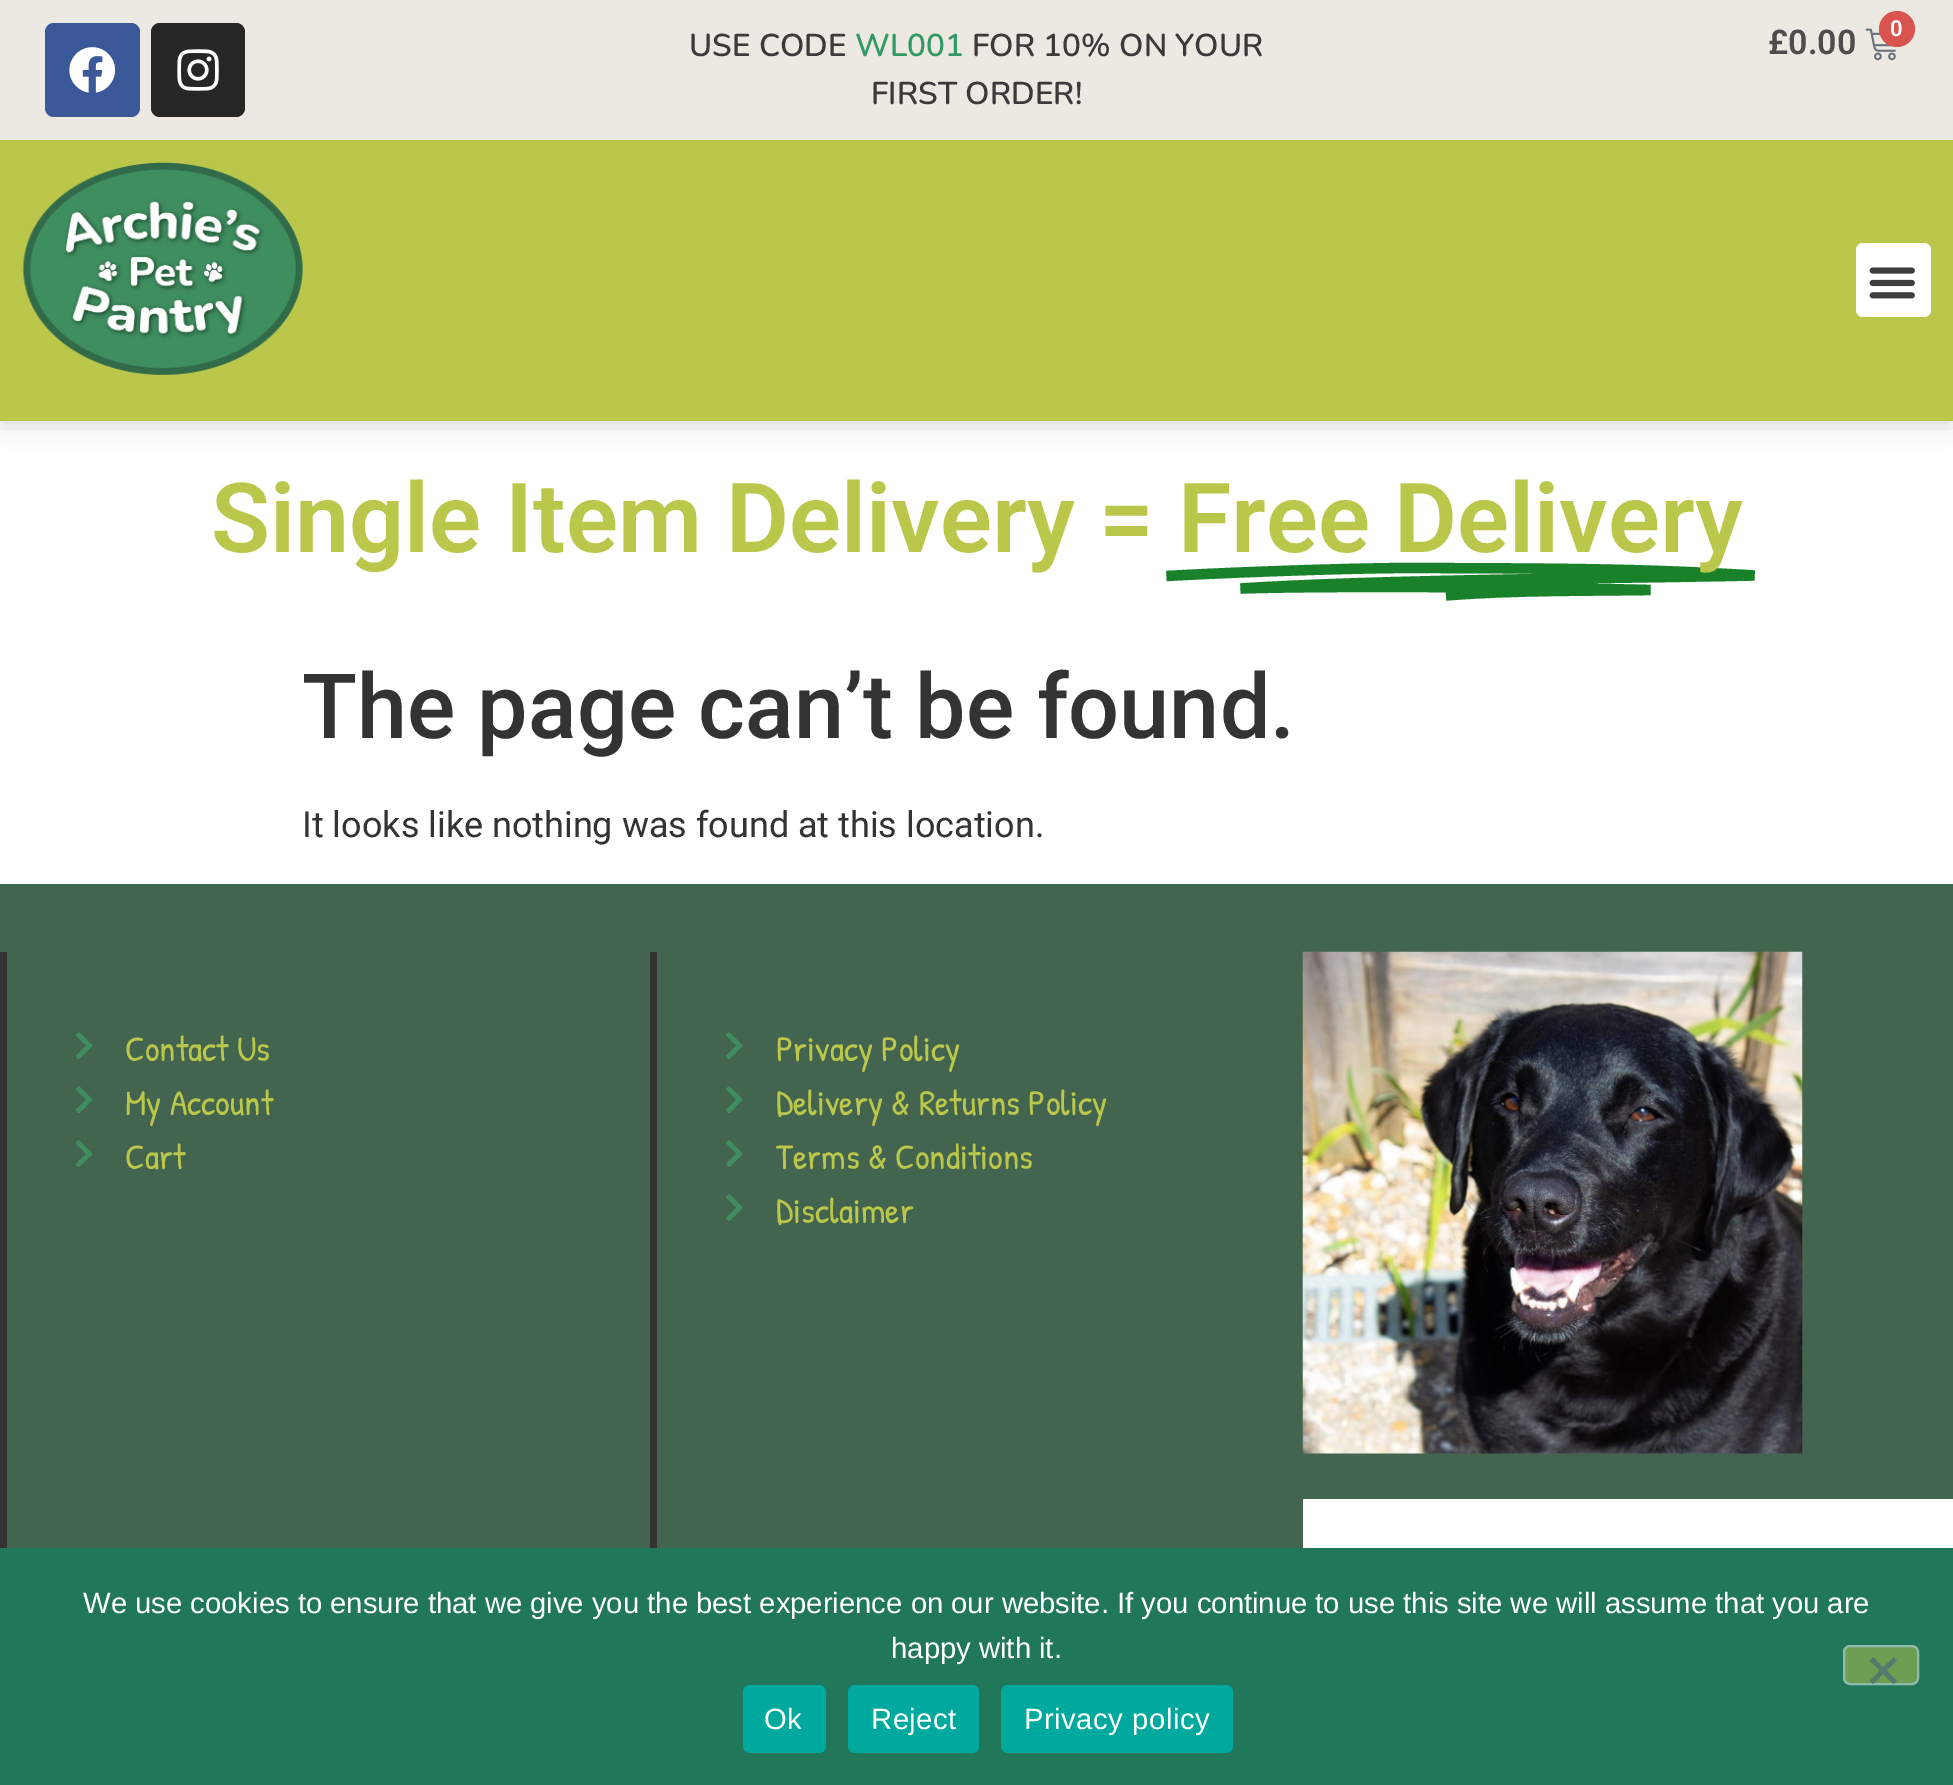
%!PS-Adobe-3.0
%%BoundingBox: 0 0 1953 1785
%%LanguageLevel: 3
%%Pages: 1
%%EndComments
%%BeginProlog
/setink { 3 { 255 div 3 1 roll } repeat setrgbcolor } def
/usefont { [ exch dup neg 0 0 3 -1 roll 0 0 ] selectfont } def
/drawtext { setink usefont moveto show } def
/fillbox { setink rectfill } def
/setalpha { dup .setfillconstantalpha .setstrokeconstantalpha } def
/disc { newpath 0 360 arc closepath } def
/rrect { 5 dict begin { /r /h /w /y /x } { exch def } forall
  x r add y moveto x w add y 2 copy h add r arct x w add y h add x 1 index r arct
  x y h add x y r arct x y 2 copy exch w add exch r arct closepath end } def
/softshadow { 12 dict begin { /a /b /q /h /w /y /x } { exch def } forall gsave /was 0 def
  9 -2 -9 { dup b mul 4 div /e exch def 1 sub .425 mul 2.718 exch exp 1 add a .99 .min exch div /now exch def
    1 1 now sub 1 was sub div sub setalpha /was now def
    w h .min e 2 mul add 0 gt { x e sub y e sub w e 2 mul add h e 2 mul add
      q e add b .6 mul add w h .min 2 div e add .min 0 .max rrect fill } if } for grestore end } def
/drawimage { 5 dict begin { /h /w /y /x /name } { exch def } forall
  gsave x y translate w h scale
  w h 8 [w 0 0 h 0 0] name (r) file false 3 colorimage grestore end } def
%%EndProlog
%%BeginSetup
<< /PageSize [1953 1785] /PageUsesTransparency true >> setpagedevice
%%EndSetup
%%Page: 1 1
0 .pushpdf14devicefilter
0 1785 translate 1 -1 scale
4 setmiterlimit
0 0 1953 1785 255 255 255 fillbox
0 0 0 setink
0 140 1953 281 0 12.5 0.21 softshadow
0 0 1953 140 235 233 225 fillbox
59 89 152 setink
45 23 95 94 9 rrect fill
(assets/img1.rgb) 69 47 47 46 drawimage
38 38 38 setink
151 23 94 94 9 rrect fill
(assets/img2.rgb) 177 49 42 42 drawimage
(USE CODE) 689 56 /Nunito-SemiBold 31.5 58 58 58 drawtext
(WL001) 855 56 /Nunito-SemiBold 31.5 51 153 102 drawtext
(FOR 10% ON YOUR) 972 56 /Nunito-SemiBold 31.5 58 58 58 drawtext
(FIRST ORDER!) 871 104 /Nunito-SemiBold 31.5 58 58 58 drawtext
(£0.00) 1768 54 /Roboto-SemiBold 34 77 77 77 drawtext
(assets/img3.rgb) 1865 28 31 33 drawimage
217 83 79 setink
1897 29 18 disc fill
(0) 1890 36 /Roboto-SemiBold 22 255 255 255 drawtext
0 140 1953 281 186 199 75 fillbox
(assets/img4.rgb) 22 162 281 213 drawimage
255 255 255 setink
1856 243 75 74 7 rrect fill
(assets/img5.rgb) 1869 267 46 32 drawimage
26 129 43 setink
10.3 setlinewidth
1166.5 576 moveto 1227 572.5 1350.5 568 1410 568 curveto 1559 568.5 1642 568.5 1754.5 575.5 curveto 1619 578.5 1376.5 579.5 1240.5 588.5 curveto 1341.5 585.5 1551 587.5 1650.5 590 curveto 1593 591 1513 590 1446 595.5 curveto stroke
(Single Item Delivery = Free Delivery) 211 552 /Roboto-SemiBold 96.75 186 199 75 drawtext
(The page can’t be found.) 302 738 /Roboto-Medium 90 51 51 51 drawtext
(It looks like nothing was found at this location.) 302 837 /Roboto-Regular 36 51 51 51 drawtext
0 884 1953 664 67 101 79 fillbox
0 952 7 596 51 51 51 fillbox
(assets/img6.rgb) 76 1032 17 27 drawimage
(Contact Us) 125 1061 /PatrickHand-Regular 36 186 199 75 drawtext
(assets/img6.rgb) 76 1086 17 27 drawimage
(My Account) 125 1115 /PatrickHand-Regular 36 186 199 75 drawtext
(assets/img6.rgb) 76 1140 17 27 drawimage
(Cart) 125 1169 /PatrickHand-Regular 36 186 199 75 drawtext
650 952 7 596 51 51 51 fillbox
(assets/img7.rgb) 726 1032 17 27 drawimage
(Privacy Policy) 776 1061 /PatrickHand-Regular 36 186 199 75 drawtext
(assets/img7.rgb) 726 1086 17 27 drawimage
(Delivery & Returns Policy) 776 1115 /PatrickHand-Regular 36 186 199 75 drawtext
(assets/img7.rgb) 726 1140 17 27 drawimage
(Terms & Conditions) 776 1169 /PatrickHand-Regular 36 186 199 75 drawtext
(assets/img7.rgb) 726 1194 17 27 drawimage
(Disclaimer) 776 1223 /PatrickHand-Regular 36 186 199 75 drawtext
(assets/img8.rgb) 1302 951 501 503 drawimage
1303 1499 650 49 255 255 255 fillbox
0 1548 1953 237 32 119 90 fillbox
(We use cookies to ensure that we give you the best experience on our website. If you continue to use this site we will assume that you are) 83 1613 /LiberationSans-Regular 29.25 255 255 255 drawtext
(happy with it.) 891 1658 /LiberationSans-Regular 29.25 255 255 255 drawtext
109 159 83 setink
1844 1646 74 38 6 rrect gsave fill grestore
144 187 173 setink
2 setlinewidth
stroke
80 124 109 setink
1893.5 1657 moveto 1897 1660.5 lineto 1873 1684 lineto 1869.5 1681 lineto closepath fill
1869.5 1660.5 moveto 1873 1657 lineto 1897 1681 lineto 1893.5 1684 lineto closepath fill
0 169 157 setink
743 1685 83 68 7 rrect fill
255 255 255 setink
764 1729 moveto 0.5 0 (Ok) ashow
0 169 157 setink
848 1685 131 68 7 rrect fill
255 255 255 setink
871 1729 moveto 0.5 0 (Reject) ashow
0 169 157 setink
1001 1685 232 68 7 rrect fill
255 255 255 setink
1024 1729 moveto 0.5 0 (Privacy policy) ashow
.poppdf14devicefilter showpage
%%EOF
